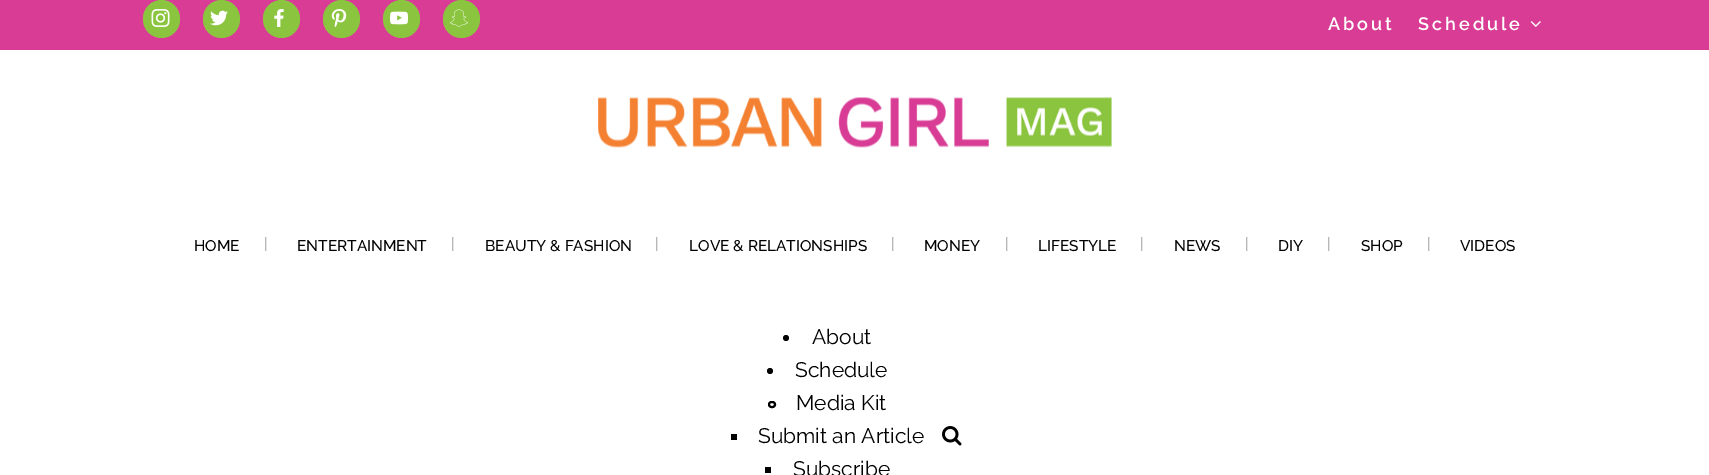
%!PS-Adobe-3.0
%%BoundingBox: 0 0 1709 475
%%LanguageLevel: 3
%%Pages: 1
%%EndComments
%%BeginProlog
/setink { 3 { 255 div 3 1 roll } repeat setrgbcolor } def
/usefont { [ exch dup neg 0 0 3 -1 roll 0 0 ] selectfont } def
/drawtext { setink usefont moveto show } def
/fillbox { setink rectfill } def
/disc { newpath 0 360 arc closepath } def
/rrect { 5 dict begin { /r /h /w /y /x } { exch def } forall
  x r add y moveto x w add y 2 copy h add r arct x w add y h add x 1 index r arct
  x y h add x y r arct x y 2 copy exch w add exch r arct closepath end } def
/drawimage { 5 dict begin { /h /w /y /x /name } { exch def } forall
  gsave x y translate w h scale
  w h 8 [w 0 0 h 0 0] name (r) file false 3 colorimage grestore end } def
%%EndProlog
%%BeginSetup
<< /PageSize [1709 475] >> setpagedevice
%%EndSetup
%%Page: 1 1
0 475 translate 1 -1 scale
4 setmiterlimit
0 0 1709 475 255 255 255 fillbox
0 0 1709 50 217 60 149 fillbox
139 197 63 setink
143 0 37 38 18.5 rrect fill
(assets/img1.rgb) 151 9 19 18 drawimage
203 0 37 38 18.5 rrect fill
(assets/img2.rgb) 210 10 18 16 drawimage
263 0 37 38 18.5 rrect fill
(assets/img3.rgb) 274 9 10 18 drawimage
323 0 37 38 18.5 rrect fill
(assets/img4.rgb) 331 9 16 18 drawimage
383 0 37 38 18.5 rrect fill
(assets/img5.rgb) 390 11 18 14 drawimage
443 0 37 38 18.5 rrect fill
(assets/img6.rgb) 450 9 18 18 drawimage
/Raleway-SemiBold 18 usefont
255 255 255 setink
1328 30 moveto 3 0 (About) ashow
1418 30 moveto 3 0 (Schedule) ashow
(assets/img7.rgb) 1530 21 11 6 drawimage
(assets/img8.rgb) 598 97 514 51 drawimage
(HOME) 194 251 /Raleway-Medium 15.4 0 0 0 drawtext
(|) 264 249 /Raleway-Thin 15.4 158 158 158 drawtext
(ENTERTAINMENT) 297 251 /Raleway-Medium 15.4 0 0 0 drawtext
(|) 451 249 /Raleway-Thin 15.4 158 158 158 drawtext
(BEAUTY & FASHION) 485 251 /Raleway-Medium 15.4 0 0 0 drawtext
(|) 655 249 /Raleway-Thin 15.4 158 158 158 drawtext
(LOVE & RELATIONSHIPS) 689 251 /Raleway-Medium 15.4 0 0 0 drawtext
(|) 891 249 /Raleway-Thin 15.4 158 158 158 drawtext
(MONEY) 924 251 /Raleway-Medium 15.4 0 0 0 drawtext
(|) 1005 249 /Raleway-Thin 15.4 158 158 158 drawtext
(LIFESTYLE) 1038 251 /Raleway-Medium 15.4 0 0 0 drawtext
(|) 1140 249 /Raleway-Thin 15.4 158 158 158 drawtext
(NEWS) 1174 251 /Raleway-Medium 15.4 0 0 0 drawtext
(|) 1245 249 /Raleway-Thin 15.4 158 158 158 drawtext
(DIY) 1278 251 /Raleway-Medium 15.4 0 0 0 drawtext
(|) 1327 249 /Raleway-Thin 15.4 158 158 158 drawtext
(SHOP) 1361 251 /Raleway-Medium 15.4 0 0 0 drawtext
(|) 1427 249 /Raleway-Thin 15.4 158 158 158 drawtext
(VIDEOS) 1460 251 /Raleway-Medium 15.4 0 0 0 drawtext
786 338 3 disc fill
(About) 812 344 /Raleway-Thin 21 0 0 0 drawtext
770 371 3 disc fill
(Schedule) 795 377 /Raleway-Thin 21 0 0 0 drawtext
2 setlinewidth
769 402 6 5 2.5 rrect stroke
(Media Kit) 796 410 /Raleway-Thin 21 0 0 0 drawtext
731 434 6 6 0 0 0 fillbox
(Submit an Article) 758 443 /Raleway-Thin 21 0 0 0 drawtext
765 467 6 6 0 0 0 fillbox
(Subscribe) 793 476 /Raleway-Thin 21 0 0 0 drawtext
(assets/img9.rgb) 942 426 20 20 drawimage
showpage
%%EOF
